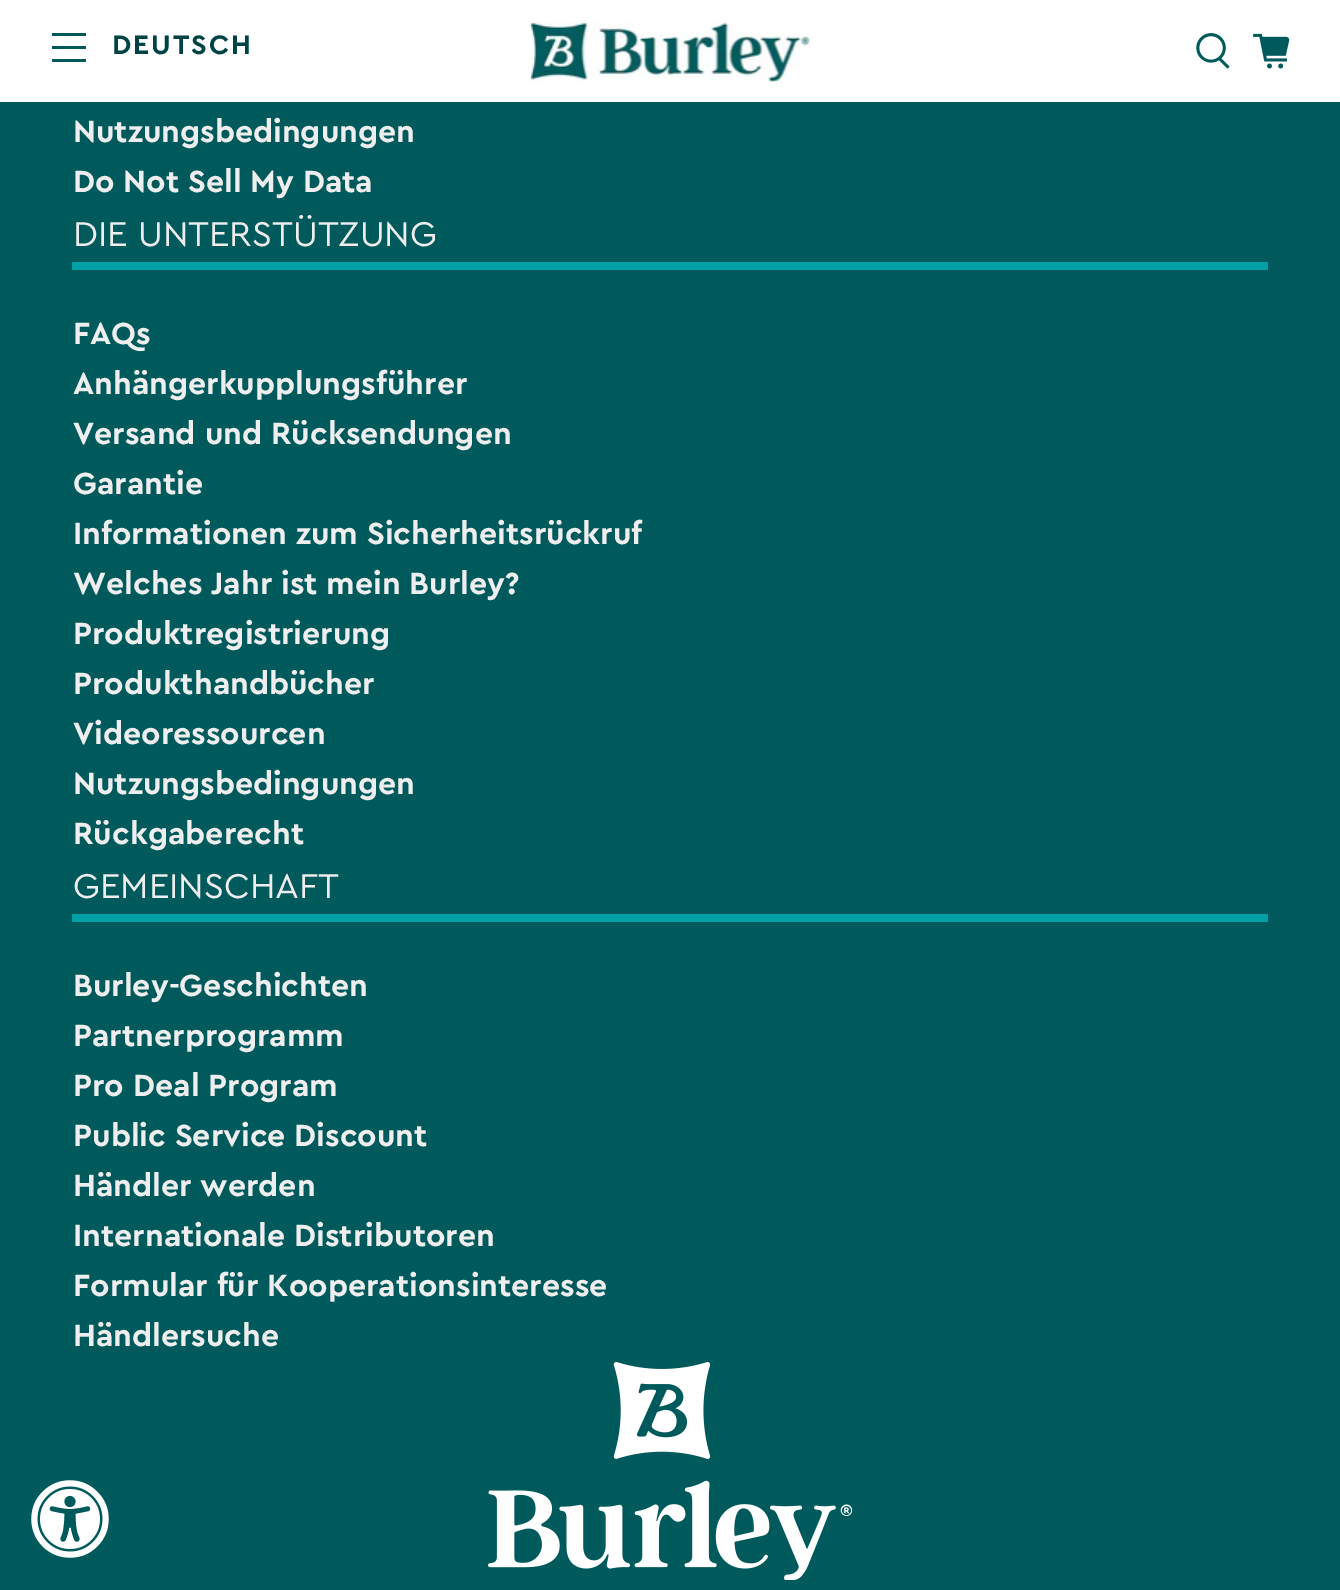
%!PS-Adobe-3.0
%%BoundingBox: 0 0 1340 1590
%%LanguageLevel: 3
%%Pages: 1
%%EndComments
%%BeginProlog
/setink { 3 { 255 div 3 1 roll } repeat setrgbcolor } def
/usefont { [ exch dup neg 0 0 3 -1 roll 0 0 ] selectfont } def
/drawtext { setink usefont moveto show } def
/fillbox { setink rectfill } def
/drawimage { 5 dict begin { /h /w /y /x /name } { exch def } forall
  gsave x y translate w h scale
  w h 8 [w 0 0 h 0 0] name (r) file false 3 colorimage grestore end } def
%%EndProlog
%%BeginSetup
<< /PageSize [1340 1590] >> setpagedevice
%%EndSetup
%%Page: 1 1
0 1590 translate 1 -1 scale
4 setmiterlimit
0 0 1340 1590 0 90 92 fillbox
0 0 1340 102 255 255 255 fillbox
52 33 34 3 0 90 92 fillbox
52 46 34 3 0 90 92 fillbox
52 59 34 3 0 90 92 fillbox
/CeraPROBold-Bold 28 usefont
0 67 69 setink
112 54 moveto 2 0 (DEUTSCH) ashow
(assets/img1.rgb) 530 22 280 60 drawimage
(assets/img2.rgb) 1196 33 34 36 drawimage
(assets/img3.rgb) 1253 33 37 36 drawimage
(Nutzungsbedingungen) 73 142 /CeraPROBold-Bold 32 238 238 238 drawtext
(Do Not Sell My Data) 73 192 /CeraPROBold-Bold 32 238 238 238 drawtext
72 262 1196 8 0 160 168 fillbox
(DIE UNTERSTÜTZUNG) 73 246 /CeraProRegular-Regular 36 238 238 238 drawtext
(FAQs) 73 344 /CeraPROBold-Bold 32 238 238 238 drawtext
(Anhängerkupplungsführer) 73 394 /CeraPROBold-Bold 32 238 238 238 drawtext
(Versand und Rücksendungen) 73 444 /CeraPROBold-Bold 32 238 238 238 drawtext
(Garantie) 73 494 /CeraPROBold-Bold 32 238 238 238 drawtext
(Informationen zum Sicherheitsrückruf) 73 544 /CeraPROBold-Bold 32 238 238 238 drawtext
(Welches Jahr ist mein Burley?) 73 594 /CeraPROBold-Bold 32 238 238 238 drawtext
(Produktregistrierung) 73 644 /CeraPROBold-Bold 32 238 238 238 drawtext
(Produkthandbücher) 73 694 /CeraPROBold-Bold 32 238 238 238 drawtext
(Videoressourcen) 73 744 /CeraPROBold-Bold 32 238 238 238 drawtext
(Nutzungsbedingungen) 73 794 /CeraPROBold-Bold 32 238 238 238 drawtext
(Rückgaberecht) 73 844 /CeraPROBold-Bold 32 238 238 238 drawtext
72 914 1196 8 0 160 168 fillbox
(GEMEINSCHAFT) 73 898 /CeraProRegular-Regular 36 238 238 238 drawtext
(Burley-Geschichten) 73 996 /CeraPROBold-Bold 32 238 238 238 drawtext
(Partnerprogramm) 73 1046 /CeraPROBold-Bold 32 238 238 238 drawtext
(Pro Deal Program) 73 1096 /CeraPROBold-Bold 32 238 238 238 drawtext
(Public Service Discount) 73 1146 /CeraPROBold-Bold 32 238 238 238 drawtext
(Händler werden) 73 1196 /CeraPROBold-Bold 32 238 238 238 drawtext
(Internationale Distributoren) 73 1246 /CeraPROBold-Bold 32 238 238 238 drawtext
(Formular für Kooperationsinteresse) 73 1296 /CeraPROBold-Bold 32 238 238 238 drawtext
(Händlersuche) 73 1346 /CeraPROBold-Bold 32 238 238 238 drawtext
(assets/img4.rgb) 488 1362 364 218 drawimage
(assets/img5.rgb) 31 1480 78 78 drawimage
showpage
%%EOF
